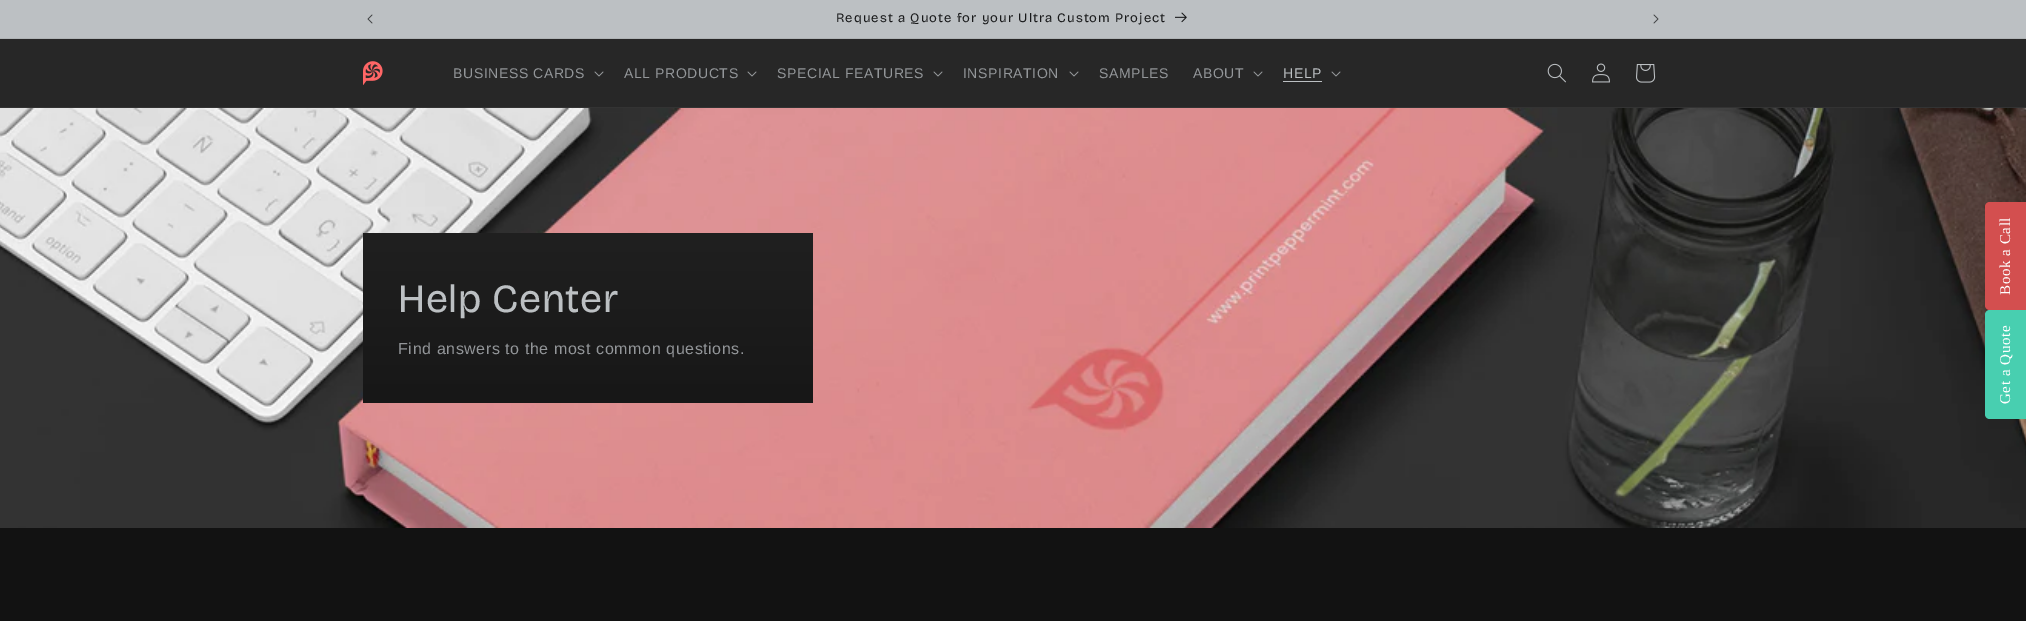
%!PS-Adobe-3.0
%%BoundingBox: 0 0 2026 621
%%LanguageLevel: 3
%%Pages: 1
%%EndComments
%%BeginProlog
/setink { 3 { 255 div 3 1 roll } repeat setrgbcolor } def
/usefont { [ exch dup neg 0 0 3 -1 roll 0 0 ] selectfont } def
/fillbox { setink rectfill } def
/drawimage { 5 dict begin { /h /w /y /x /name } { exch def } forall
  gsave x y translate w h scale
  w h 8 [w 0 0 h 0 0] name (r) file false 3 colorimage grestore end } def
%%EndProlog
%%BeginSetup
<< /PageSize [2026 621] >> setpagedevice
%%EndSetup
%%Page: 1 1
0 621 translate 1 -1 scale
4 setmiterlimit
0 0 2026 621 255 255 255 fillbox
gsave 0 39 moveto 2026 39 lineto 2026 621 lineto 0 621 lineto closepath clip newpath
<< /ShadingType 2 /ColorSpace /DeviceRGB /Coords [1013 0 1013 621] /Extend [true true] /Function << /FunctionType 3 /Domain [0 1] /Functions [<< /FunctionType 2 /Domain [0 1] /C0 [0.153 0.153 0.153] /C1 [0.153 0.153 0.153] /N 1 >> << /FunctionType 2 /Domain [0 1] /C0 [0.153 0.153 0.153] /C1 [0.071 0.071 0.071] /N 1 >> << /FunctionType 2 /Domain [0 1] /C0 [0.071 0.071 0.071] /C1 [0.071 0.071 0.071] /N 1 >>] /Bounds [0.17 0.8] /Encode [0 1 0 1 0 1] >> >> shfill grestore
0 0 2026 38 188 192 195 fillbox
0 38 2026 1 175 179 181 fillbox
(assets/img1.rgb) 367 14 6 10 drawimage
/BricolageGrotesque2-Regular 13 usefont
24 25 26 setink
836 22 moveto 1 0 (Request a Quote for your Ultra Custom Project) ashow
(assets/img2.rgb) 1175 12 12 11 drawimage
(assets/img3.rgb) 1653 14 6 10 drawimage
0 107 2026 1 51 51 51 fillbox
(assets/img4.rgb) 363 61 20 24 drawimage
/LiberationSans-Regular 14 usefont
147 150 153 setink
453 78 moveto 0.6 0 (BUSINESS CARDS) ashow
(assets/img5.rgb) 594 71 10 6 drawimage
624 78 moveto 0.6 0 (ALL PRODUCTS) ashow
(assets/img5.rgb) 747 71 10 6 drawimage
777 78 moveto 0.6 0 (SPECIAL FEATURES) ashow
(assets/img5.rgb) 933 71 10 6 drawimage
963 78 moveto 0.6 0 (INSPIRATION) ashow
(assets/img5.rgb) 1069 71 10 6 drawimage
1099 78 moveto 0.6 0 (SAMPLES) ashow
1193 78 moveto 0.6 0 (ABOUT) ashow
(assets/img5.rgb) 1253 71 10 6 drawimage
188 192 195 setink
1283 78 moveto 0.6 0 (HELP) ashow
1283 81 39 1 188 192 195 fillbox
(assets/img5.rgb) 1331 71 10 6 drawimage
(assets/img6.rgb) 1547 63 19 20 drawimage
(assets/img7.rgb) 1592 63 18 20 drawimage
(assets/img8.rgb) 1636 64 20 19 drawimage
(assets/img9.rgb) 0 108 2026 420 drawimage
211 79 79 setink
1985 305 moveto 1985 207 lineto 1985 204 1987 202 1990 202 curveto 2026 202 lineto 2026 310 lineto 1990 310 lineto 1987 310 1985 308 1985 305 curveto closepath fill
/LiberationSerif-Regular 15 usefont
255 255 255 setink
gsave 2010 295 translate -90 rotate 0 0 moveto 0.6 0 (Book a Call) ashow grestore
gsave 363 233 moveto 813 233 lineto 813 403 lineto 363 403 lineto closepath clip newpath
<< /ShadingType 2 /ColorSpace /DeviceRGB /Coords [1013 0 1013 621] /Extend [true true] /Function << /FunctionType 3 /Domain [0 1] /Functions [<< /FunctionType 2 /Domain [0 1] /C0 [0.153 0.153 0.153] /C1 [0.153 0.153 0.153] /N 1 >> << /FunctionType 2 /Domain [0 1] /C0 [0.153 0.153 0.153] /C1 [0.071 0.071 0.071] /N 1 >> << /FunctionType 2 /Domain [0 1] /C0 [0.071 0.071 0.071] /C1 [0.071 0.071 0.071] /N 1 >>] /Bounds [0.17 0.8] /Encode [0 1 0 1 0 1] >> >> shfill grestore
/BricolageGrotesque-Regular 40 usefont
188 192 195 setink
398 312 moveto 0.6 0 (Help Center) ashow
/LiberationSans-Regular 16 usefont
147 150 153 setink
398 354 moveto 0.6 0 (Find answers to the most common questions.) ashow
72 207 176 setink
1985 414 moveto 1985 315 lineto 1985 312 1987 310 1990 310 curveto 2026 310 lineto 2026 419 lineto 1990 419 lineto 1987 419 1985 417 1985 414 curveto closepath fill
/LiberationSerif-Regular 15 usefont
255 255 255 setink
gsave 2010 404 translate -90 rotate 0 0 moveto 0.6 0 (Get a Quote) ashow grestore
showpage
%%EOF
